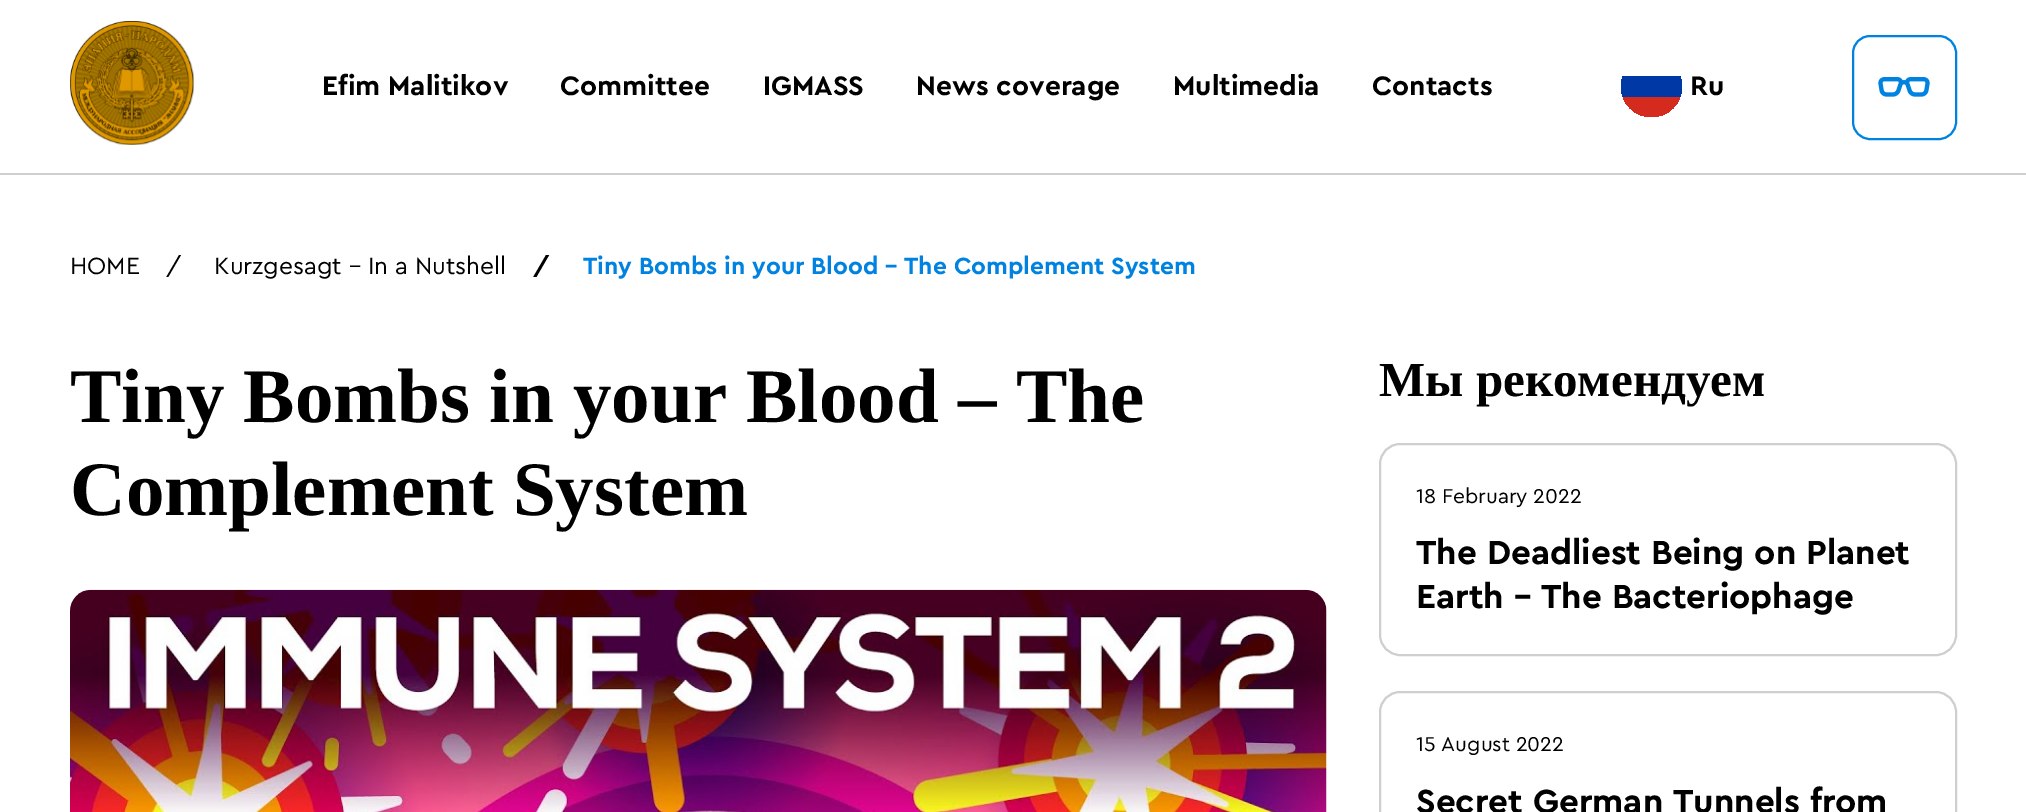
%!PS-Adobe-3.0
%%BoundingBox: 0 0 2026 812
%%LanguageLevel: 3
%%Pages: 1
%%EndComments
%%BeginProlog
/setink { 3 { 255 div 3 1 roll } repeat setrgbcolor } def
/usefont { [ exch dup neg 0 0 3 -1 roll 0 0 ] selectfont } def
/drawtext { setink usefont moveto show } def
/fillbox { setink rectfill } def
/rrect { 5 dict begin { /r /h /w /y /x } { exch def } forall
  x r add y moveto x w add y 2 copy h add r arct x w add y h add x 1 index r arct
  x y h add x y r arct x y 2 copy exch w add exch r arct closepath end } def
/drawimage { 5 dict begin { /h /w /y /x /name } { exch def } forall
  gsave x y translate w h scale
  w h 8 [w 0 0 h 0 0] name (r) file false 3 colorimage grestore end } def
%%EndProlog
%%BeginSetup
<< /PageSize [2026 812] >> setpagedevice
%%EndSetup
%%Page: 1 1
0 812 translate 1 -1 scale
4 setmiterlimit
0 0 2026 812 255 255 255 fillbox
0 173 2026 2 207 207 207 fillbox
(assets/img1.rgb) 70 21 124 124 drawimage
(Efim Malitikov) 322 95 /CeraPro-Bold 28 0 0 0 drawtext
(Committee) 560 95 /CeraPro-Bold 28 0 0 0 drawtext
(IGMASS) 763 95 /CeraPro-Bold 28 0 0 0 drawtext
(News coverage) 916 95 /CeraPro-Bold 28 0 0 0 drawtext
(Multimedia) 1173 95 /CeraPro-Bold 28 0 0 0 drawtext
(Contacts) 1372 95 /CeraPro-Bold 28 0 0 0 drawtext
gsave
1621 56 61 61 30.5 rrect clip newpath
1621 76 61 21 0 57 166 fillbox
1623 97 57 20 213 43 30 fillbox
grestore
(Ru) 1690 95 /CeraPro-Bold 28 0 0 0 drawtext
0 130 224 setink
2 setlinewidth
1853 36 103 103 17 rrect stroke
(assets/img2.rgb) 1878 77 52 20 drawimage
(HOME) 70 274 /CeraPro-Regular 24.5 0 0 0 drawtext
(/) 166 274 /CeraPro-Regular 24.5 0 0 0 drawtext
(Kurzgesagt – In a Nutshell) 214 274 /CeraPro-Regular 24.5 0 0 0 drawtext
(/) 533 274 /CeraPro-Bold 24.5 0 0 0 drawtext
(Tiny Bombs in your Blood – The Complement System) 583 274 /CeraPro-Bold 24.5 0 130 224 drawtext
(Tiny Bombs in your Blood – The) 70 422 /LiberationSerif-Bold 77 0 0 0 drawtext
(Complement System) 70 515 /LiberationSerif-Bold 77 0 0 0 drawtext
(assets/img3.rgb) 70 589 1257 223 drawimage
(Мы рекомендуем) 1379 396 /LiberationSerif-Bold 49 0 0 0 drawtext
207 207 207 setink
1380 444 576 211 20 rrect stroke
(18 February 2022) 1416 503 /CeraPro-Regular 21 0 0 0 drawtext
(The Deadliest Being on Planet) 1416 564 /CeraPro-Bold 35 0 0 0 drawtext
(Earth – The Bacteriophage) 1416 608 /CeraPro-Bold 35 0 0 0 drawtext
207 207 207 setink
1380 692 576 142 20 rrect stroke
(15 August 2022) 1416 751 /CeraPro-Regular 21 0 0 0 drawtext
(Secret German Tunnels from) 1416 813 /CeraPro-Bold 35 0 0 0 drawtext
showpage
%%EOF
